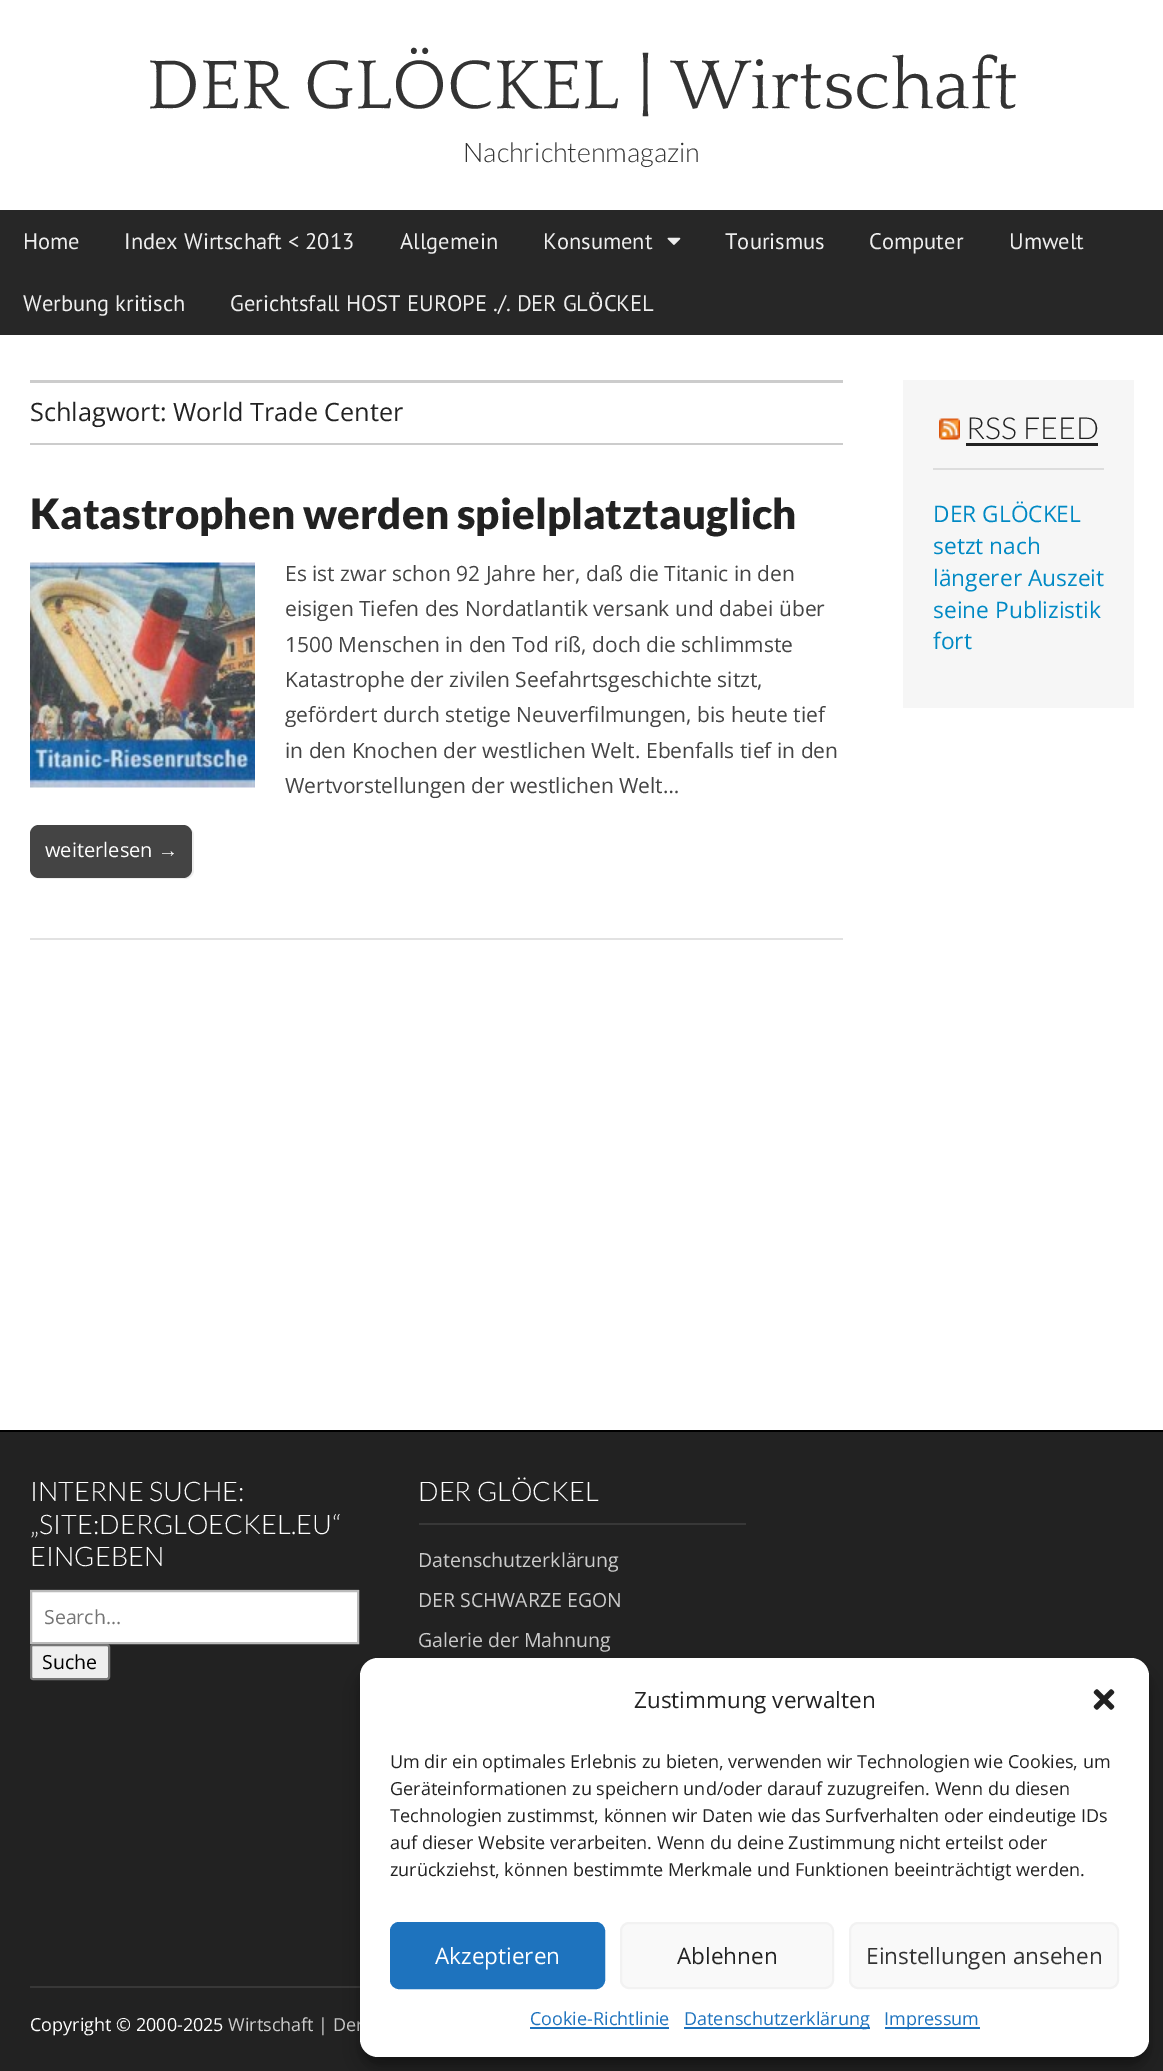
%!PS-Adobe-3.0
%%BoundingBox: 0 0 1163 2071
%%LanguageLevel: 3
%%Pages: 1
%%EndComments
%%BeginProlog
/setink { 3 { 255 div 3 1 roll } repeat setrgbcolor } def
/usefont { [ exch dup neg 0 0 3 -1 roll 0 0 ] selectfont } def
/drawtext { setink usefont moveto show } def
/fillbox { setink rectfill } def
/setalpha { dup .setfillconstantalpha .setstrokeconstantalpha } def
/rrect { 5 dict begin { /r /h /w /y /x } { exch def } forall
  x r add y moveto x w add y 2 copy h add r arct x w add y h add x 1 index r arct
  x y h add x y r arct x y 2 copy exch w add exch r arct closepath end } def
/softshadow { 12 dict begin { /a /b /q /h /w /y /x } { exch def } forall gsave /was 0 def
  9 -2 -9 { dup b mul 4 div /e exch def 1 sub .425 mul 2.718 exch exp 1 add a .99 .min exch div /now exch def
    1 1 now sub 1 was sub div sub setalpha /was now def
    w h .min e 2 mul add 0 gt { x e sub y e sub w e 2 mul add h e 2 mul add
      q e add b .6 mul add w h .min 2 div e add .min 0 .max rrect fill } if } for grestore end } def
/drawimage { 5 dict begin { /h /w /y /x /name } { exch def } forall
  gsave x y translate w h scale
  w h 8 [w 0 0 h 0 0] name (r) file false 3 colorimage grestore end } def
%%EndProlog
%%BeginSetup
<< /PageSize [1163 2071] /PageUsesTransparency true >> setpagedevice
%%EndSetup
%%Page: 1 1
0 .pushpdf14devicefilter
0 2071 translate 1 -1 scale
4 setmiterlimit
0 0 1163 2071 255 255 255 fillbox
(DER GLÖCKEL | Wirtschaft) 147 108 /Quattrocento-Regular 72 51 51 51 drawtext
(Nachrichtenmagazin) 463 162 /Lato-Light 27 51 51 51 drawtext
0 210 1163 125 39 39 39 fillbox
(Home) 23 249 /PTSans-Regular 22.5 238 238 238 drawtext
(Index Wirtschaft < 2013) 124 249 /PTSans-Regular 22.5 238 238 238 drawtext
(Allgemein) 400 249 /PTSans-Regular 22.5 238 238 238 drawtext
(Konsument) 543 249 /PTSans-Regular 22.5 238 238 238 drawtext
(assets/img1.rgb) 667 237 14 8 drawimage
(Tourismus) 725 249 /PTSans-Regular 22.5 238 238 238 drawtext
(Computer) 869 249 /PTSans-Regular 22.5 238 238 238 drawtext
(Umwelt) 1009 249 /PTSans-Regular 22.5 238 238 238 drawtext
(Werbung kritisch) 23 311 /PTSans-Regular 22.5 238 238 238 drawtext
(Gerichtsfall HOST EUROPE ./. DER GLÖCKEL) 230 311 /PTSans-Regular 22.5 238 238 238 drawtext
30 380 813 3 204 204 204 fillbox
30 443 813 2 204 204 204 fillbox
(Schlagwort: World Trade Center) 30 421 /OpenSans-Regular 25.25 34 34 34 drawtext
30 938 813 2 226 226 226 fillbox
(Katastrophen werden spielplatztauglich) 30 529 /Lato-Black 42 34 34 34 drawtext
(assets/img2.rgb) 30 562 225 226 drawimage
(Es ist zwar schon 92 Jahre her, daß die Titanic in den) 285 581 /OpenSans-Regular 21 68 68 68 drawtext
(eisigen Tiefen des Nordatlantik versank und dabei über) 285 616 /OpenSans-Regular 21 68 68 68 drawtext
(1500 Menschen in den Tod riß, doch die schlimmste) 285 652 /OpenSans-Regular 21 68 68 68 drawtext
(Katastrophe der zivilen Seefahrtsgeschichte sitzt,) 285 687 /OpenSans-Regular 21 68 68 68 drawtext
(gefördert durch stetige Neuverfilmungen, bis heute tief) 285 722 /OpenSans-Regular 21 68 68 68 drawtext
(in den Knochen der westlichen Welt. Ebenfalls tief in den) 285 758 /OpenSans-Regular 21 68 68 68 drawtext
(Wertvorstellungen der westlichen Welt…) 285 793 /OpenSans-Regular 21 68 68 68 drawtext
238 238 238 setink
35 876 moveto 36 878 39 879 41 879 curveto 185 879 lineto 190 879 194 875 194 870 curveto 194 836 lineto 194 833 193 830 190 829 curveto 191 830 192 832 192 834 curveto 192 868 lineto 192 873 188 878 183 878 curveto 39 878 lineto 37 878 36 877 35 876 curveto closepath fill
68 68 68 setink
30 825 162 53 9 rrect fill
(weiterlesen) 45 857 /OpenSans-Regular 20 255 255 255 drawtext
(→) 158 857 /LiberationSans-Regular 20 255 255 255 drawtext
903 380 231 328 246 246 246 fillbox
933 468 171 2 221 221 221 fillbox
(assets/img3.rgb) 939 418 21 22 drawimage
(RSS FEED) 966 439 /Lato-Light 30.25 34 34 34 drawtext
966 443 132 3 34 34 34 fillbox
(DER GLÖCKEL) 933 522 /OpenSans-Regular 22.75 0 137 196 drawtext
(setzt nach) 933 554 /OpenSans-Regular 22.75 0 137 196 drawtext
(längerer Auszeit) 933 586 /OpenSans-Regular 22.75 0 137 196 drawtext
(seine Publizistik) 933 618 /OpenSans-Regular 22.75 0 137 196 drawtext
(fort) 933 649 /OpenSans-Regular 22.75 0 137 196 drawtext
0 1432 1163 639 34 34 34 fillbox
0 1430 1163 2 0 0 0 fillbox
30 1589 329 1 56 56 56 fillbox
(INTERNE SUCHE:) 30 1501 /Lato-Light 27 255 255 255 drawtext
(„SITE:DERGLOECKEL.EU“) 30 1534 /Lato-Light 27 255 255 255 drawtext
(EINGEBEN) 30 1566 /Lato-Light 27 255 255 255 drawtext
31 1591 moveto 358 1591 lineto 358 1643 lineto 31 1643 lineto closepath gsave fill grestore
187 187 187 setink
2 setlinewidth
stroke
(Search…) 44 1624 /OpenSans-Regular 19.5 117 117 117 drawtext
239 239 239 setink
31 1645 78 34 2 rrect gsave fill grestore
118 118 118 setink
stroke
(Suche) 42 1669 /OpenSans-Regular 19.5 0 0 0 drawtext
419 1523 327 2 56 56 56 fillbox
(DER GLÖCKEL) 418 1501 /Lato-Light 27 255 255 255 drawtext
(Datenschutzerklärung) 418 1567 /OpenSans-Regular 19.5 204 204 204 drawtext
(DER SCHWARZE EGON) 418 1607 /OpenSans-Regular 19.5 204 204 204 drawtext
(Galerie der Mahnung) 418 1647 /OpenSans-Regular 19.5 204 204 204 drawtext
30 1986 330 2 56 56 56 fillbox
(Copyright © 2000-2025) 30 2031 /OpenSans-Regular 18 255 255 255 drawtext
(Wirtschaft | Der) 228 2031 /OpenSans-Regular 18 204 204 204 drawtext
0 0 0 setink
360 1667 789 399 18 4.5 0.23 softshadow
360 1673 789 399 18 15 0.19 softshadow
255 255 255 setink
360 1658 789 399 18 rrect fill
(Zustimmung verwalten) 634 1708 /OpenSans-Regular 22.5 34 34 34 drawtext
(assets/img4.rgb) 1093 1689 22 21 drawimage
(Um dir ein optimales Erlebnis zu bieten, verwenden wir Technologien wie Cookies, um) 390 1768 /OpenSans-Regular 18 34 34 34 drawtext
(Geräteinformationen zu speichern und/oder darauf zuzugreifen. Wenn du diesen) 390 1795 /OpenSans-Regular 18 34 34 34 drawtext
(Technologien zustimmst, können wir Daten wie das Surfverhalten oder eindeutige IDs) 390 1822 /OpenSans-Regular 18 34 34 34 drawtext
(auf dieser Website verarbeiten. Wenn du deine Zustimmung nicht erteilst oder) 390 1849 /OpenSans-Regular 18 34 34 34 drawtext
(zurückziehst, können bestimmte Merkmale und Funktionen beeinträchtigt werden.) 390 1876 /OpenSans-Regular 18 34 34 34 drawtext
30 115 190 setink
391 1923 213 65 8 rrect gsave fill grestore
stroke
(Akzeptieren) 435 1964 /OpenSans-Regular 22.5 255 255 255 drawtext
249 249 249 setink
621 1923 212 65 8 rrect gsave fill grestore
242 242 242 setink
stroke
(Ablehnen) 677 1964 /OpenSans-Regular 22.5 34 34 34 drawtext
249 249 249 setink
850 1923 268 65 8 rrect gsave fill grestore
242 242 242 setink
stroke
(Einstellungen ansehen) 866 1964 /OpenSans-Regular 22.5 51 51 51 drawtext
(Cookie-Richtlinie) 530 2025 /OpenSans-Regular 18 30 115 190 drawtext
530 2027 139 2 30 115 190 fillbox
684 2027 186 2 30 115 190 fillbox
(Datenschutzerklärung) 684 2025 /OpenSans-Regular 18 30 115 190 drawtext
885 2027 95 2 30 115 190 fillbox
(Impressum) 884 2025 /OpenSans-Regular 18 30 115 190 drawtext
.poppdf14devicefilter showpage
%%EOF
